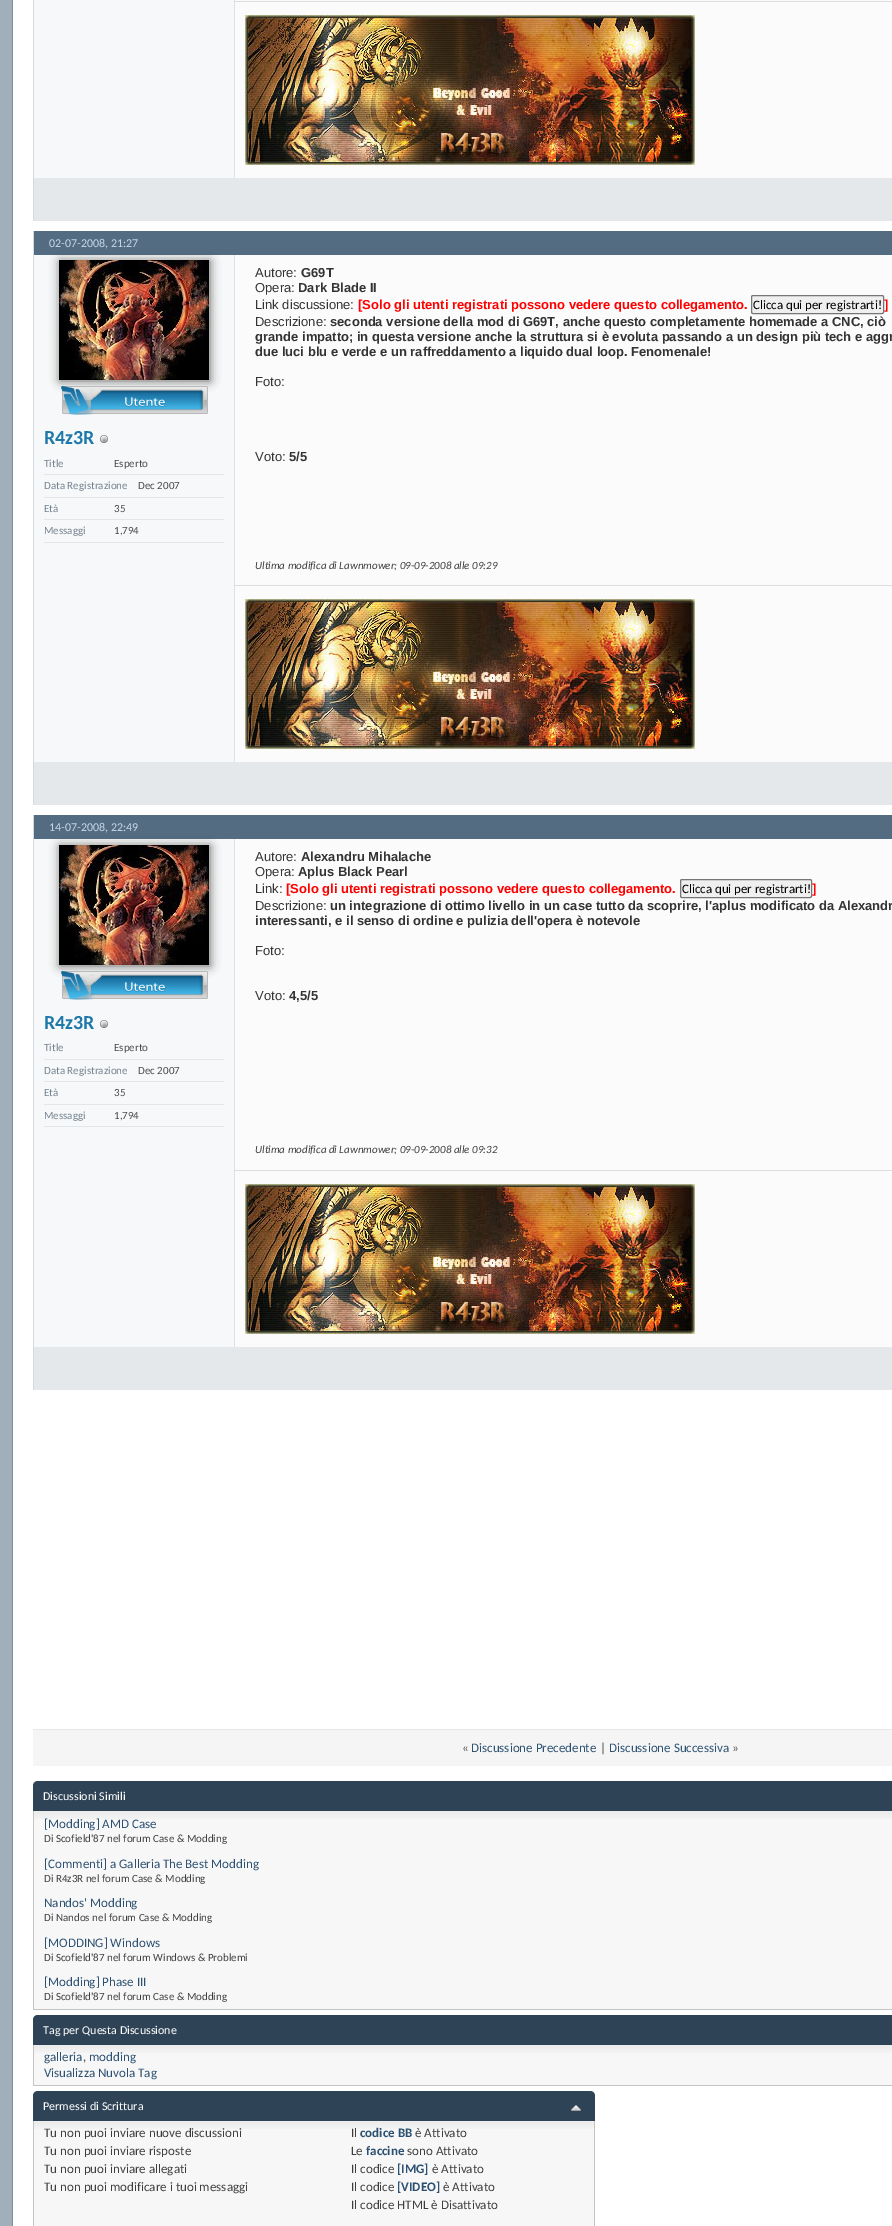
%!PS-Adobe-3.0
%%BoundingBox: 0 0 892 2226
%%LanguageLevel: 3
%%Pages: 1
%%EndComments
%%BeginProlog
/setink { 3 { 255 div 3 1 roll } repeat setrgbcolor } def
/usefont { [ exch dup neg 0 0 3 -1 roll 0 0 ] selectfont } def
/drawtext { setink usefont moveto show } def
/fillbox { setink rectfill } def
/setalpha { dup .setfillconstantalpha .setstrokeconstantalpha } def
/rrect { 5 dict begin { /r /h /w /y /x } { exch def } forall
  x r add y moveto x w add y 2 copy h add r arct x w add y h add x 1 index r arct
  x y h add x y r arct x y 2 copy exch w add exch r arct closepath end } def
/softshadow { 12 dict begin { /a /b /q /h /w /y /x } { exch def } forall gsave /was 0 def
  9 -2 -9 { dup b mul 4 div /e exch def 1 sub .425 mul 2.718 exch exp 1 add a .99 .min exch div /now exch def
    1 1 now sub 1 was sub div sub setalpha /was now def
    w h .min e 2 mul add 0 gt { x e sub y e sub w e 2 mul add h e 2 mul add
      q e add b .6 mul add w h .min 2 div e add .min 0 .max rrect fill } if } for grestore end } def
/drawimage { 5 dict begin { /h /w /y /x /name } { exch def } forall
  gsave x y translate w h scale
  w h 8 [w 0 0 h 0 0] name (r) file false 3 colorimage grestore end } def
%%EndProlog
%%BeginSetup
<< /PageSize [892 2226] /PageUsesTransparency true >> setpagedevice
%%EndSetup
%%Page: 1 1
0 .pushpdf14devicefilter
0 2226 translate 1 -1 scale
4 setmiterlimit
0 0 892 2226 161 175 187 fillbox
13 0 879 2226 255 255 255 fillbox
12 0 1 2226 127 143 157 fillbox
34 178 858 43 229 232 235 fillbox
33 0 1 221 212 218 225 fillbox
34 0 200 178 247 248 249 fillbox
235 0 657 178 251 251 251 fillbox
234 0 1 178 221 225 229 fillbox
235 1 657 1 221 221 221 fillbox
(assets/img1.rgb) 245 15 450 150 drawimage
34 762 858 43 229 232 235 fillbox
33 231 1 574 212 218 225 fillbox
34 231 858 24 84 108 130 fillbox
(02-07-2008, 21:27) 49 247 /Carlito-Regular 12 195 214 232 drawtext
34 255 200 507 247 248 249 fillbox
50 50 50 setink
60 261 150 120 0 5 0.75 softshadow
(assets/img2.rgb) 59 260 150 120 drawimage
(assets/img3.rgb) 61 386 147 29 drawimage
(R4z3R) 44 444 /Carlito-Bold 20 30 120 169 drawtext
(assets/img4.rgb) 100 435 8 8 drawimage
(Title) 44 467 /Carlito-Regular 11 115 130 144 drawtext
44 474 180 1 227 230 232 fillbox
(Esperto) 114 467 /Carlito-Regular 11 74 74 74 drawtext
(Data Registrazione) 44 489 /Carlito-Regular 11 115 130 144 drawtext
44 497 180 1 227 230 232 fillbox
(Dec 2007) 138 489 /Carlito-Regular 11 74 74 74 drawtext
(Età) 44 512 /Carlito-Regular 11 115 130 144 drawtext
44 519 180 1 227 230 232 fillbox
(35) 114 512 /Carlito-Regular 11 74 74 74 drawtext
(Messaggi) 44 534 /Carlito-Regular 11 115 130 144 drawtext
44 542 180 1 227 230 232 fillbox
(1,794) 114 534 /Carlito-Regular 11 74 74 74 drawtext
235 255 657 507 251 251 251 fillbox
234 255 1 507 221 225 229 fillbox
(Autore:) 255 277 /LiberationSans-Regular 13 51 51 51 drawtext
(G69T) 301 277 /LiberationSans-Bold 13 51 51 51 drawtext
(Opera:) 255 292 /LiberationSans-Regular 13 51 51 51 drawtext
(Dark Blade II) 298 292 /LiberationSans-Bold 13 51 51 51 drawtext
(Link discussione:) 255 309 /LiberationSans-Regular 13 51 51 51 drawtext
([Solo gli utenti registrati possono vedere questo collegamento.) 358 309 /LiberationSans-Bold 13 255 0 0 drawtext
(]) 884 309 /LiberationSans-Bold 13 255 0 0 drawtext
239 239 239 setink
751.5 295.5 132 18 1.5 rrect gsave fill grestore
118 118 118 setink
stroke
(Clicca qui per registrarti!) 753 309 /Carlito-Regular 12.9 0 0 0 drawtext
(Descrizione:) 255 326 /LiberationSans-Regular 13 51 51 51 drawtext
(seconda versione della mod di G69T, anche questo completamente homemade a CNC, ciò) 330 326 /LiberationSans-Bold 13 51 51 51 drawtext
(grande impatto; in questa versione anche la struttura si è evoluta passando a un design più tech e aggr) 255 341 /LiberationSans-Bold 13 51 51 51 drawtext
(due luci blu e verde e un raffreddamento a liquido dual loop. Fenomenale!) 255 356 /LiberationSans-Bold 13 51 51 51 drawtext
(Foto:) 255 386 /LiberationSans-Regular 13 51 51 51 drawtext
(Voto:) 255 461 /LiberationSans-Regular 13 51 51 51 drawtext
(5/5) 289 461 /LiberationSans-Bold 13 51 51 51 drawtext
(Ultima modifica di Lawnmower; 09-09-2008 alle 09:29) 255 569 /Carlito-Italic 11 62 62 62 drawtext
235 585 657 1 221 221 221 fillbox
(assets/img1.rgb) 245 599 450 150 drawimage
34 1347 858 43 229 232 235 fillbox
33 815 1 575 212 218 225 fillbox
34 815 858 24 84 108 130 fillbox
(14-07-2008, 22:49) 49 831 /Carlito-Regular 12 195 214 232 drawtext
34 839 200 508 247 248 249 fillbox
50 50 50 setink
60 846 150 120 0 5 0.75 softshadow
(assets/img2.rgb) 59 845 150 120 drawimage
(assets/img3.rgb) 61 971 147 29 drawimage
(R4z3R) 44 1029 /Carlito-Bold 20 30 120 169 drawtext
(assets/img4.rgb) 100 1020 8 8 drawimage
(Title) 44 1051 /Carlito-Regular 11 115 130 144 drawtext
44 1059 180 1 227 230 232 fillbox
(Esperto) 114 1051 /Carlito-Regular 11 74 74 74 drawtext
(Data Registrazione) 44 1074 /Carlito-Regular 11 115 130 144 drawtext
44 1081 180 1 227 230 232 fillbox
(Dec 2007) 138 1074 /Carlito-Regular 11 74 74 74 drawtext
(Età) 44 1096 /Carlito-Regular 11 115 130 144 drawtext
44 1104 180 1 227 230 232 fillbox
(35) 114 1096 /Carlito-Regular 11 74 74 74 drawtext
(Messaggi) 44 1119 /Carlito-Regular 11 115 130 144 drawtext
44 1126 180 1 227 230 232 fillbox
(1,794) 114 1119 /Carlito-Regular 11 74 74 74 drawtext
235 839 657 508 251 251 251 fillbox
234 839 1 508 221 225 229 fillbox
(Autore:) 255 861 /LiberationSans-Regular 13 51 51 51 drawtext
(Alexandru Mihalache) 301 861 /LiberationSans-Bold 13 51 51 51 drawtext
(Opera:) 255 876 /LiberationSans-Regular 13 51 51 51 drawtext
(Aplus Black Pearl) 298 876 /LiberationSans-Bold 13 51 51 51 drawtext
(Link:) 255 893 /LiberationSans-Regular 13 51 51 51 drawtext
([Solo gli utenti registrati possono vedere questo collegamento.) 286 893 /LiberationSans-Bold 13 255 0 0 drawtext
239 239 239 setink
680.5 879.5 131 18 1.5 rrect gsave fill grestore
118 118 118 setink
stroke
(Clicca qui per registrarti!) 682 893 /Carlito-Regular 12.9 0 0 0 drawtext
(]) 812 893 /LiberationSans-Bold 13 255 0 0 drawtext
(Descrizione:) 255 910 /LiberationSans-Regular 13 51 51 51 drawtext
(un integrazione di ottimo livello in un case tutto da scoprire, l'aplus modificato da Alexandr) 330 910 /LiberationSans-Bold 13 51 51 51 drawtext
(interessanti, e il senso di ordine e pulizia dell'opera è notevole) 255 925 /LiberationSans-Bold 13 51 51 51 drawtext
(Foto:) 255 955 /LiberationSans-Regular 13 51 51 51 drawtext
(Voto:) 255 1000 /LiberationSans-Regular 13 51 51 51 drawtext
(4,5/5) 289 1000 /LiberationSans-Bold 13 51 51 51 drawtext
(Ultima modifica di Lawnmower; 09-09-2008 alle 09:32) 255 1153 /Carlito-Italic 11 62 62 62 drawtext
235 1170 657 1 221 221 221 fillbox
(assets/img1.rgb) 245 1184 450 150 drawimage
33 1730 859 36 245 245 245 fillbox
33 1729 859 1 231 231 231 fillbox
(«) 462 1752 /Carlito-Regular 13 93 93 93 drawtext
(Discussione Precedente) 471 1752 /Carlito-Regular 13 43 80 113 drawtext
(|) 600 1752 /Carlito-Regular 13 93 93 93 drawtext
(Discussione Successiva) 609 1752 /Carlito-Regular 13 43 80 113 drawtext
(») 732 1752 /Carlito-Regular 13 93 93 93 drawtext
46 67 86 setink
38 1781 moveto 892 1781 lineto 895 1781 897 1783 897 1786 curveto 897 1811 lineto 33 1811 lineto 33 1786 lineto 33 1783 35 1781 38 1781 curveto closepath fill
(Discussioni Simili) 43 1800 /Carlito-Regular 12 255 255 255 drawtext
34 1811 858 198 247 247 247 fillbox
(assets/img5.rgb) 34 1811 858 8 drawimage
33 2009 859 1 196 196 196 fillbox
33 1811 1 199 196 196 196 fillbox
([Modding] AMD Case) 44 1828 /Carlito-Regular 13 43 80 113 drawtext
(Di Scofield'87 nel forum Case & Modding) 44 1842 /Carlito-Regular 11 62 62 62 drawtext
([Commenti] a Galleria The Best Modding) 44 1868 /Carlito-Regular 13 43 80 113 drawtext
(Di R4z3R nel forum Case & Modding) 44 1882 /Carlito-Regular 11 62 62 62 drawtext
(Nandos' Modding) 44 1907 /Carlito-Regular 13 43 80 113 drawtext
(Di Nandos nel forum Case & Modding) 44 1921 /Carlito-Regular 11 62 62 62 drawtext
([MODDING] Windows) 44 1947 /Carlito-Regular 13 43 80 113 drawtext
(Di Scofield'87 nel forum Windows & Problemi) 44 1961 /Carlito-Regular 11 62 62 62 drawtext
([Modding] Phase III) 44 1986 /Carlito-Regular 13 43 80 113 drawtext
(Di Scofield'87 nel forum Case & Modding) 44 2000 /Carlito-Regular 11 62 62 62 drawtext
46 67 86 setink
38 2015 moveto 892 2015 lineto 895 2015 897 2017 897 2020 curveto 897 2045 lineto 33 2045 lineto 33 2020 lineto 33 2017 35 2015 38 2015 curveto closepath fill
(Tag per Questa Discussione) 43 2034 /Carlito-Regular 12 255 255 255 drawtext
34 2045 858 40 247 247 247 fillbox
(assets/img5.rgb) 34 2045 858 8 drawimage
33 2085 859 1 196 196 196 fillbox
33 2045 1 41 196 196 196 fillbox
(galleria) 44 2061 /Carlito-Regular 13 43 80 113 drawtext
(,) 83 2061 /Carlito-Regular 13 62 62 62 drawtext
(modding) 89 2061 /Carlito-Regular 13 43 80 113 drawtext
(Visualizza Nuvola Tag) 44 2077 /Carlito-Regular 13 43 80 113 drawtext
46 67 86 setink
38 2091 moveto 590 2091 lineto 593 2091 595 2093 595 2096 curveto 595 2121 lineto 33 2121 lineto 33 2096 lineto 33 2093 35 2091 38 2091 curveto closepath fill
(Permessi di Scrittura) 43 2110 /Carlito-Regular 12 255 255 255 drawtext
(assets/img6.rgb) 571 2105 10 6 drawimage
34 2121 560 105 247 247 247 fillbox
(assets/img7.rgb) 34 2121 560 8 drawimage
594 2121 1 105 196 196 196 fillbox
33 2121 1 105 196 196 196 fillbox
(Tu non puoi inviare nuove discussioni) 44 2137 /Carlito-Regular 13 62 62 62 drawtext
(Tu non puoi inviare risposte) 44 2155 /Carlito-Regular 13 62 62 62 drawtext
(Tu non puoi inviare allegati) 44 2173 /Carlito-Regular 13 62 62 62 drawtext
(Tu non puoi modificare i tuoi messaggi) 44 2191 /Carlito-Regular 13 62 62 62 drawtext
(Il) 351 2137 /Carlito-Regular 13 62 62 62 drawtext
(codice BB) 360 2137 /Carlito-Bold 13 43 80 113 drawtext
(è Attivato) 415 2137 /Carlito-Regular 13 62 62 62 drawtext
(Le) 351 2155 /Carlito-Regular 13 62 62 62 drawtext
(faccine) 366 2155 /Carlito-Bold 13 43 80 113 drawtext
(sono Attivato) 407 2155 /Carlito-Regular 13 62 62 62 drawtext
(Il codice) 351 2173 /Carlito-Regular 13 62 62 62 drawtext
([IMG]) 397 2173 /Carlito-Bold 13 43 80 113 drawtext
(è Attivato) 432 2173 /Carlito-Regular 13 62 62 62 drawtext
(Il codice) 351 2191 /Carlito-Regular 13 62 62 62 drawtext
([VIDEO]) 397 2191 /Carlito-Bold 13 43 80 113 drawtext
(è Attivato) 443 2191 /Carlito-Regular 13 62 62 62 drawtext
(Il codice HTML è Disattivato) 351 2209 /Carlito-Regular 13 62 62 62 drawtext
.poppdf14devicefilter showpage
%%EOF
